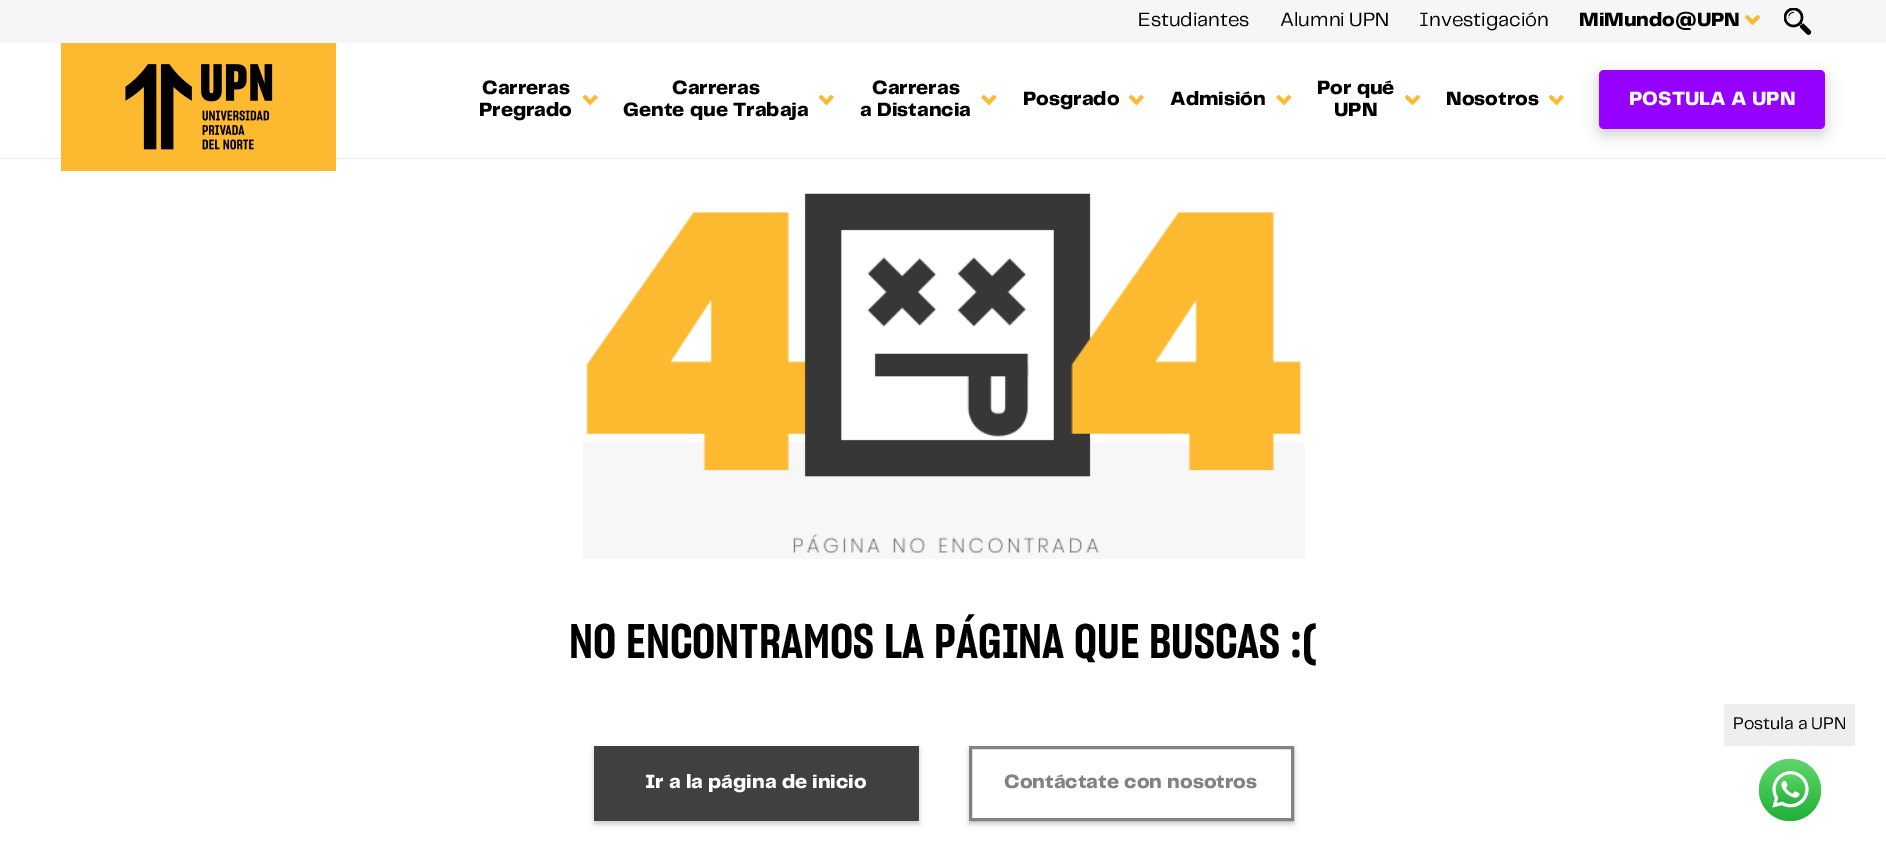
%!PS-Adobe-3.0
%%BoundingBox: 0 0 1886 852
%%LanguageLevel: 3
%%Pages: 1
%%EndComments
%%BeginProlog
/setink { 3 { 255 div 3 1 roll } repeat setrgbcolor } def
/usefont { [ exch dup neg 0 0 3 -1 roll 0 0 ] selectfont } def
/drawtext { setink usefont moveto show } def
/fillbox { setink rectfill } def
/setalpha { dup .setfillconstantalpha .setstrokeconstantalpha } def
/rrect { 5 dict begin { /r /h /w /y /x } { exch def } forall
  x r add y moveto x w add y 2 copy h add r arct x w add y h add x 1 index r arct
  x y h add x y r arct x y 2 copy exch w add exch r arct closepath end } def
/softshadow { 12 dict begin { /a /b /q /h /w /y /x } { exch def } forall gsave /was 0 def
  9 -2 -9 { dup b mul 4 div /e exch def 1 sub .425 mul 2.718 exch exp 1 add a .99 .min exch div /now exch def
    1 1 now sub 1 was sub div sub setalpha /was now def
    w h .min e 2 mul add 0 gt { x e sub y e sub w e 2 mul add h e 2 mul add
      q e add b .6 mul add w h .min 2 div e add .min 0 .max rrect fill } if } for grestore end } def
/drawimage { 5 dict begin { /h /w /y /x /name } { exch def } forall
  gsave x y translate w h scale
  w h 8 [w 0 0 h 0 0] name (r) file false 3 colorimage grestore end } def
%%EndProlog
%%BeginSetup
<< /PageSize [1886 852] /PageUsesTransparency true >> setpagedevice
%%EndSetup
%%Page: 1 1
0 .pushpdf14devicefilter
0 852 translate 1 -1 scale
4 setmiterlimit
0 0 1886 852 255 255 255 fillbox
0 158 1886 1 234 234 234 fillbox
0 0 1886 43 246 246 246 fillbox
(Estudiantes) 1138 26 /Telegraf-Regular 20 0 0 0 drawtext
(Alumni UPN) 1280 26 /Telegraf-Regular 20 0 0 0 drawtext
(Investigación) 1419 26 /Telegraf-Regular 20 0 0 0 drawtext
(MiMundo@UPN) 1579 26 /Telegraf-ExtraBold 20 0 0 0 drawtext
gsave
1745 15 16 11 rectclip
253 186 48 setink
3.8 setlinewidth
1746 16 moveto 1752.5 22.5 lineto 1759 16 lineto stroke
grestore
(assets/img1.rgb) 1784 8 27 27 drawimage
(assets/img2.rgb) 61 43 275 128 drawimage
(Carreras) 482 94 /Telegraf-ExtraBold 20 0 0 0 drawtext
(Pregrado) 479 116 /Telegraf-ExtraBold 20 0 0 0 drawtext
gsave
583 95 16 11 rectclip
253 186 48 setink
3.8 setlinewidth
584 96 moveto 590 102.5 lineto 596.5 96 lineto stroke
grestore
(Carreras) 672 94 /Telegraf-ExtraBold 20 0 0 0 drawtext
(Gente que Trabaja) 623 116 /Telegraf-ExtraBold 20 0 0 0 drawtext
gsave
819 95 16 11 rectclip
253 186 48 setink
3.8 setlinewidth
820 96 moveto 826.5 102.5 lineto 832.5 96 lineto stroke
grestore
(Carreras) 872 94 /Telegraf-ExtraBold 20 0 0 0 drawtext
(a Distancia) 860 116 /Telegraf-ExtraBold 20 0 0 0 drawtext
253 186 48 setink
3.8 setlinewidth
982.5 96 moveto 989 102.5 lineto 995 96 lineto stroke
(Posgrado) 1023 105 /Telegraf-ExtraBold 20 0 0 0 drawtext
gsave
1129 95 16 11 rectclip
253 186 48 setink
1130 96 moveto 1136.5 102.5 lineto 1142.5 96 lineto stroke
grestore
(Admisión) 1170 105 /Telegraf-ExtraBold 20 0 0 0 drawtext
253 186 48 setink
1277.5 96 moveto 1284 102.5 lineto 1290 96 lineto stroke
(Por qué) 1317 94 /Telegraf-ExtraBold 20 0 0 0 drawtext
(UPN) 1334 116 /Telegraf-ExtraBold 20 0 0 0 drawtext
gsave
1405 95 16 11 rectclip
253 186 48 setink
1406 96 moveto 1412.5 102.5 lineto 1419 96 lineto stroke
grestore
(Nosotros) 1446 105 /Telegraf-ExtraBold 20 0 0 0 drawtext
gsave
1549 95 16 11 rectclip
253 186 48 setink
1550 96 moveto 1556.5 102.5 lineto 1562.5 96 lineto stroke
grestore
1599 75 226 59 5 7.5 0.2 softshadow
149 0 255 setink
1599 70 226 59 5 rrect fill
(POSTULA A UPN) 1629 105 /Telegraf-ExtraBold 20 255 255 255 drawtext
(assets/img3.rgb) 583 193 722 366 drawimage
(NO ENCONTRAMOS LA PÁGINA QUE BUSCAS :\() 569 658 /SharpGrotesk-SemiBold 47.5 0 0 0 drawtext
594 749 325 75 0 2.5 0.2 softshadow
594 746 325 75 64 64 65 fillbox
(Ir a la página de inicio) 645 788 /Telegraf-ExtraBold 20 255 255 255 drawtext
0 0 0 setink
969 749 325 75 0 2.5 0.2 softshadow
255 255 255 setink
970.5 747.5 moveto 1292.5 747.5 lineto 1292.5 819.5 lineto 970.5 819.5 lineto closepath gsave fill grestore
128 130 132 setink
3 setlinewidth
stroke
(Contáctate con nosotros) 1004 788 /Telegraf-ExtraBold 20 128 130 132 drawtext
1724 704 131 42 238 238 238 fillbox
(Postula a UPN) 1733 729 /Telegraf-Regular 17.5 0 0 0 drawtext
(assets/img4.rgb) 1759 759 62 62 drawimage
.poppdf14devicefilter showpage
%%EOF
